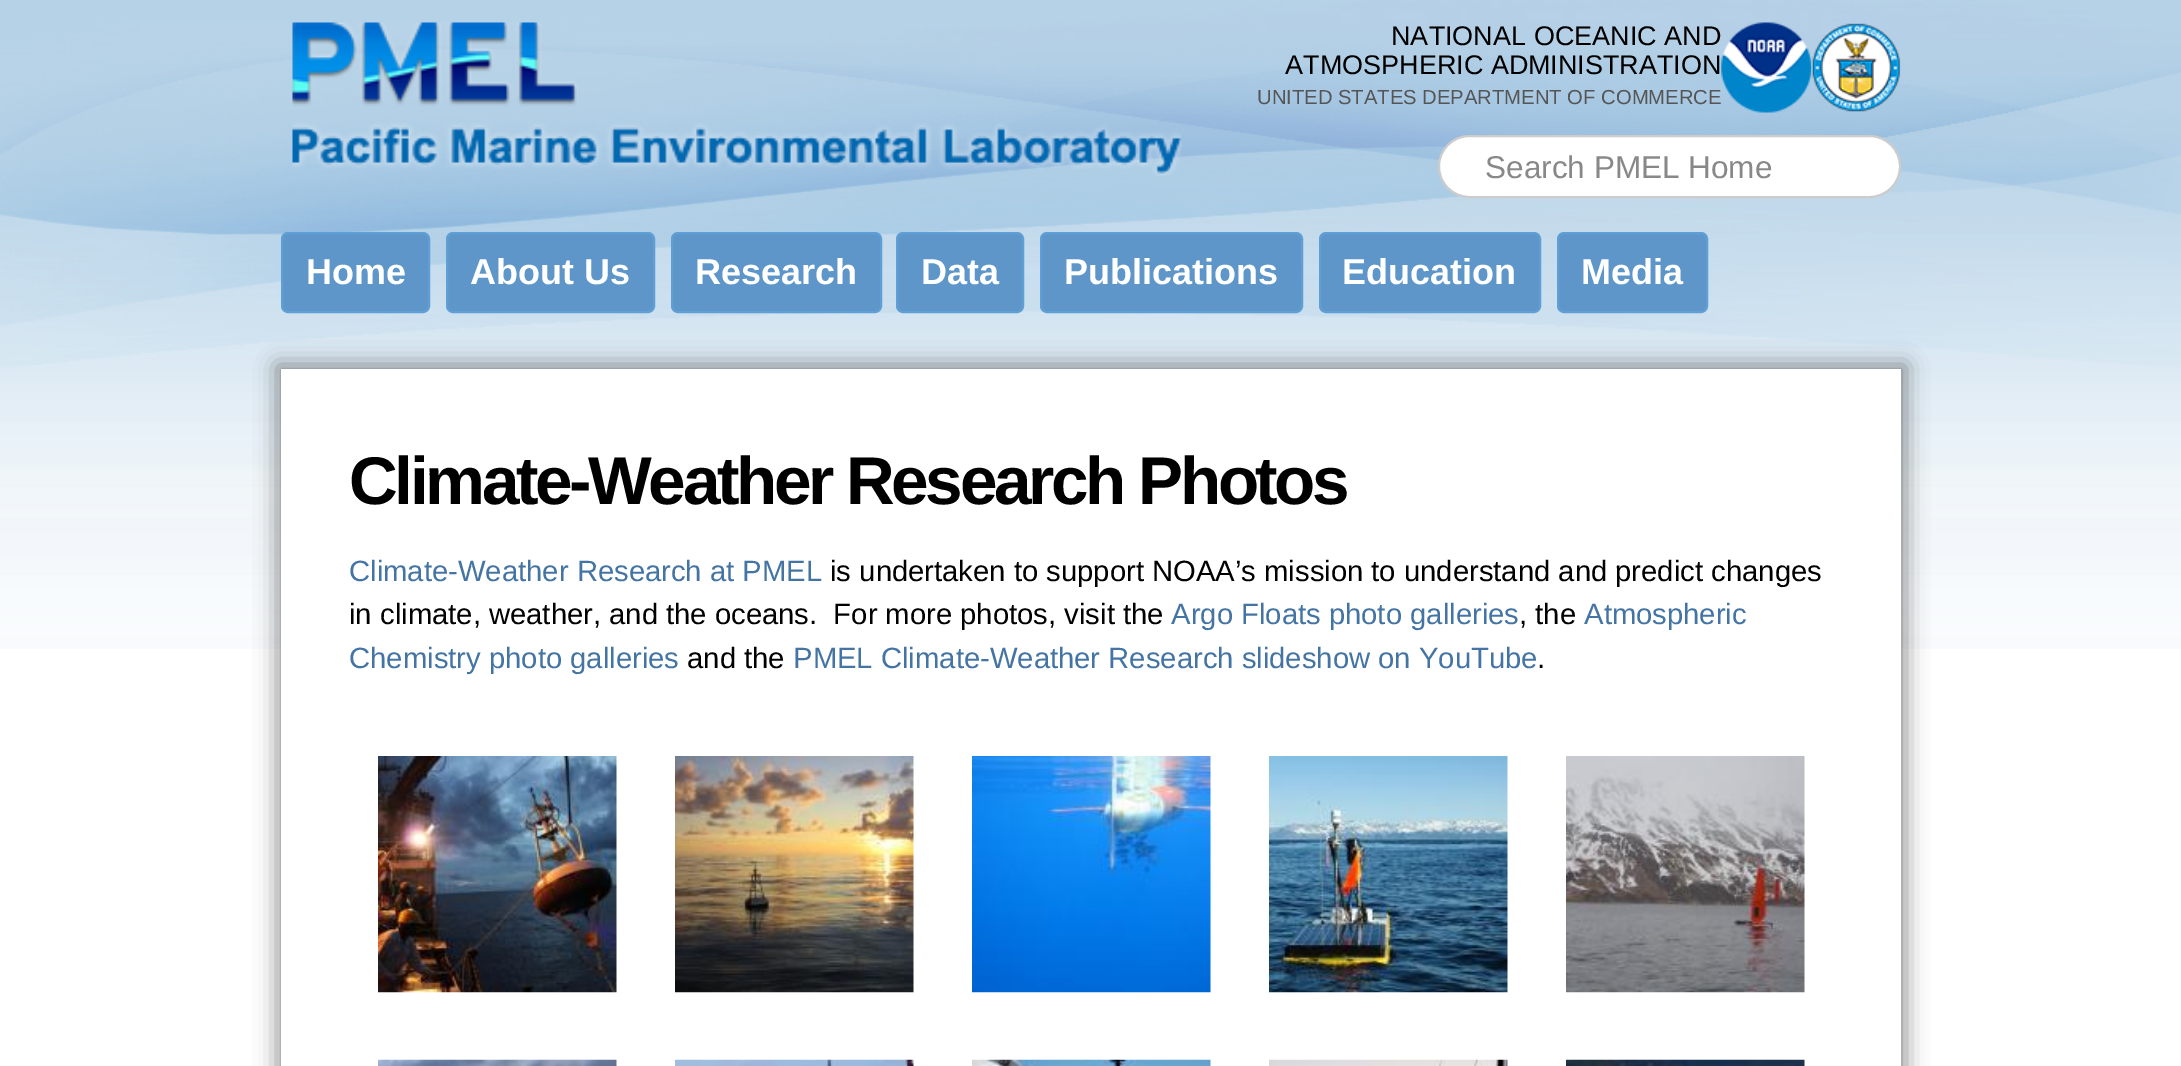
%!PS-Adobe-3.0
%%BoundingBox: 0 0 2181 1066
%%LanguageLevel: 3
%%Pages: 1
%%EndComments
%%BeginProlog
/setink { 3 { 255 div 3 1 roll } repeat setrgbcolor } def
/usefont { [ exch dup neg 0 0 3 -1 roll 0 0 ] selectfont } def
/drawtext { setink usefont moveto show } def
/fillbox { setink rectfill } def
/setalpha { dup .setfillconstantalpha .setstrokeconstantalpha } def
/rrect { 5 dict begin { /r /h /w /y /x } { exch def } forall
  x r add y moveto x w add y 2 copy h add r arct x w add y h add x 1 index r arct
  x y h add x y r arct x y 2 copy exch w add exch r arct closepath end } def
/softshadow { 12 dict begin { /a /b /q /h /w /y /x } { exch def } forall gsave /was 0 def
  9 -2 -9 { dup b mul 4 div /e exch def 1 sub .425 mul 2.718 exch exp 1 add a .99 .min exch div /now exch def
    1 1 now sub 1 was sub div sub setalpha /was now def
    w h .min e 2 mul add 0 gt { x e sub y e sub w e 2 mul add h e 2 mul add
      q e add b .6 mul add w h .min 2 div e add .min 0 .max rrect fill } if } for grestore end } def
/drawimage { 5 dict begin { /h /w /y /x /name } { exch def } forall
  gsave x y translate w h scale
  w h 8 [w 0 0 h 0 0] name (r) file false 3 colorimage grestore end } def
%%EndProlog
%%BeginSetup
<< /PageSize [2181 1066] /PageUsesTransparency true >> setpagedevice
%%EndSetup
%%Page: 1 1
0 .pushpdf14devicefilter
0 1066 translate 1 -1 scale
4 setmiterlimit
0 0 2181 1066 255 255 255 fillbox
(assets/img1.rgb) 0 0 2181 649 drawimage
(assets/img2.rgb) 292 22 890 154 drawimage
(NATIONAL OCEANIC AND) 1391 45 /LiberationSans-Regular 27 0 0 0 drawtext
(ATMOSPHERIC ADMINISTRATION) 1285 74 /LiberationSans-Regular 27 0 0 0 drawtext
(UNITED STATES DEPARTMENT OF COMMERCE) 1257 104 /LiberationSans-Regular 20.25 85 85 85 drawtext
(assets/img3.rgb) 1721 22 91 91 drawimage
(assets/img4.rgb) 1812 23 89 89 drawimage
255 255 255 setink
1439 136 461 61 30.5 rrect gsave fill grestore
204 204 204 setink
2 setlinewidth
stroke
(Search PMEL Home) 1485 178 /LiberationSans-Regular 31.5 136 136 136 drawtext
94 150 201 setink
282 233 147 79 6 rrect gsave fill grestore
95 159 214 setink
stroke
(Home) 306 284 /LiberationSans-Bold 36 255 255 255 drawtext
94 150 201 setink
447 233 207 79 6 rrect gsave fill grestore
95 159 214 setink
stroke
(About Us) 470 284 /LiberationSans-Bold 36 255 255 255 drawtext
94 150 201 setink
672 233 209 79 6 rrect gsave fill grestore
95 159 214 setink
stroke
(Research) 695 284 /LiberationSans-Bold 36 255 255 255 drawtext
94 150 201 setink
897 233 126 79 6 rrect gsave fill grestore
95 159 214 setink
stroke
(Data) 921 284 /LiberationSans-Bold 36 255 255 255 drawtext
94 150 201 setink
1041 233 261 79 6 rrect gsave fill grestore
95 159 214 setink
stroke
(Publications) 1064 284 /LiberationSans-Bold 36 255 255 255 drawtext
94 150 201 setink
1320 233 220 79 6 rrect gsave fill grestore
95 159 214 setink
stroke
(Education) 1342 284 /LiberationSans-Bold 36 255 255 255 drawtext
94 150 201 setink
1558 233 149 79 6 rrect gsave fill grestore
95 159 214 setink
stroke
(Media) 1581 284 /LiberationSans-Bold 36 255 255 255 drawtext
68 68 68 setink
277 365 1629 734 0 11 0.6 softshadow
281 369 1620 697 255 255 255 fillbox
/LiberationSans-Bold 67.5 usefont
0 0 0 setink
349 504 moveto -3.4 0 (Climate-Weather Research Photos) ashow
(Climate-Weather Research at PMEL) 349 581 /LiberationSans-Regular 29.25 68 116 163 drawtext
(is undertaken to support NOAA’s mission to understand and predict changes) 830 581 /LiberationSans-Regular 29.25 0 0 0 drawtext
(in climate, weather, and the oceans.  For more photos, visit the) 349 624 /LiberationSans-Regular 29.25 0 0 0 drawtext
(Argo Floats photo galleries) 1171 624 /LiberationSans-Regular 29.25 68 116 163 drawtext
(, the) 1519 624 /LiberationSans-Regular 29.25 0 0 0 drawtext
(Atmospheric) 1584 624 /LiberationSans-Regular 29.25 68 116 163 drawtext
(Chemistry photo galleries) 349 668 /LiberationSans-Regular 29.25 68 116 163 drawtext
(and the) 687 668 /LiberationSans-Regular 29.25 0 0 0 drawtext
(PMEL Climate-Weather Research slideshow on YouTube) 793 668 /LiberationSans-Regular 29.25 68 116 163 drawtext
(.) 1537 668 /LiberationSans-Regular 29.25 0 0 0 drawtext
(assets/img5.rgb) 378 756 239 237 drawimage
(assets/img6.rgb) 675 756 239 237 drawimage
(assets/img7.rgb) 972 756 239 237 drawimage
(assets/img8.rgb) 1269 756 239 237 drawimage
(assets/img9.rgb) 1566 756 239 237 drawimage
(assets/img10.rgb) 378 1059 239 7 drawimage
(assets/img11.rgb) 675 1059 239 7 drawimage
(assets/img12.rgb) 972 1059 239 7 drawimage
(assets/img13.rgb) 1269 1059 239 7 drawimage
(assets/img14.rgb) 1566 1059 239 7 drawimage
.poppdf14devicefilter showpage
%%EOF
